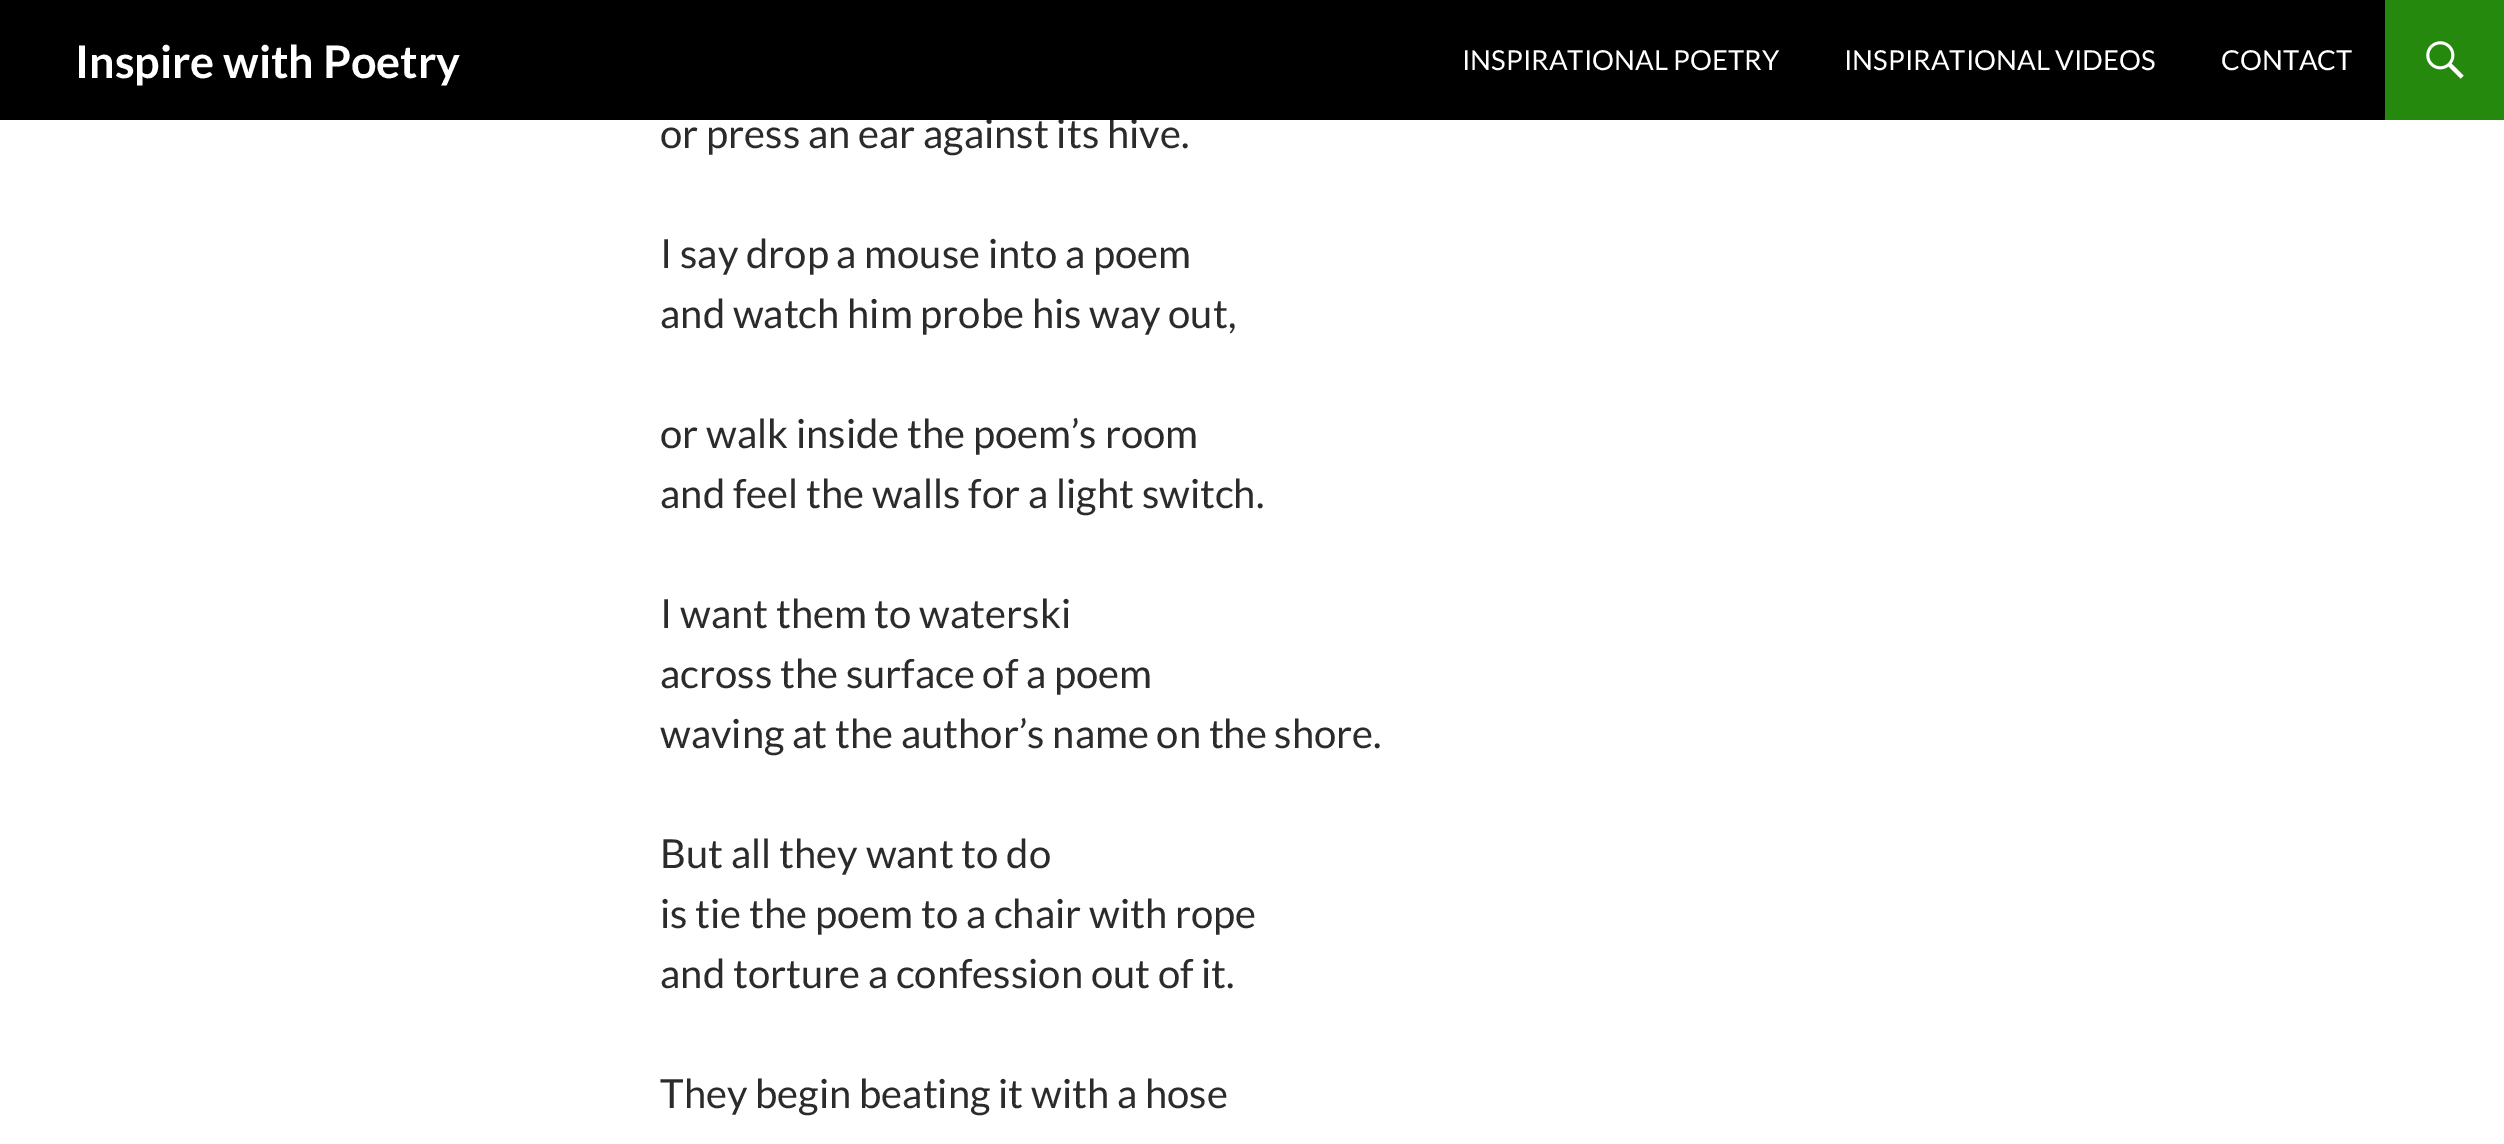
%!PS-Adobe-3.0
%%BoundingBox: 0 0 2504 1144
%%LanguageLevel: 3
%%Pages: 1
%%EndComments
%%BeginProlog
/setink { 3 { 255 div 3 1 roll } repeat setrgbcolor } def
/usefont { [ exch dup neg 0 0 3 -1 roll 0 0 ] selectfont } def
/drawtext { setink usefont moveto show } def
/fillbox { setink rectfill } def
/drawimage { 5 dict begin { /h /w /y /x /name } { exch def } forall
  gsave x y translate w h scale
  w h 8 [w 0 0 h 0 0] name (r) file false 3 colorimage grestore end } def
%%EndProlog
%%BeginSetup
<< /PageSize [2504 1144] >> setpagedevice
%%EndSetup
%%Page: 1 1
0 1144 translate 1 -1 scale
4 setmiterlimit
0 0 2504 1144 255 255 255 fillbox
(or press an ear against its hive.) 660 148 /Lato-Regular 40 43 43 43 drawtext
0 0 2385 120 0 0 0 fillbox
(Inspire with Poetry) 75 78 /Lato-Bold 45 255 255 255 drawtext
(INSPIRATIONAL POETRY) 1462 70 /Lato-Regular 27.5 255 255 255 drawtext
(INSPIRATIONAL VIDEOS) 1844 70 /Lato-Regular 27.5 255 255 255 drawtext
(CONTACT) 2221 70 /Lato-Regular 27.5 255 255 255 drawtext
2385 0 119 120 36 137 13 fillbox
(assets/img1.rgb) 2426 41 38 38 drawimage
(I say drop a mouse into a poem) 660 268 /Lato-Regular 40 43 43 43 drawtext
(and watch him probe his way out,) 660 328 /Lato-Regular 40 43 43 43 drawtext
(or walk inside the poem’s room) 660 448 /Lato-Regular 40 43 43 43 drawtext
(and feel the walls for a light switch.) 660 508 /Lato-Regular 40 43 43 43 drawtext
(I want them to waterski) 660 628 /Lato-Regular 40 43 43 43 drawtext
(across the surface of a poem) 660 688 /Lato-Regular 40 43 43 43 drawtext
(waving at the author’s name on the shore.) 660 748 /Lato-Regular 40 43 43 43 drawtext
(But all they want to do) 660 868 /Lato-Regular 40 43 43 43 drawtext
(is tie the poem to a chair with rope) 660 928 /Lato-Regular 40 43 43 43 drawtext
(and torture a confession out of it.) 660 988 /Lato-Regular 40 43 43 43 drawtext
(They begin beating it with a hose) 660 1108 /Lato-Regular 40 43 43 43 drawtext
showpage
%%EOF
